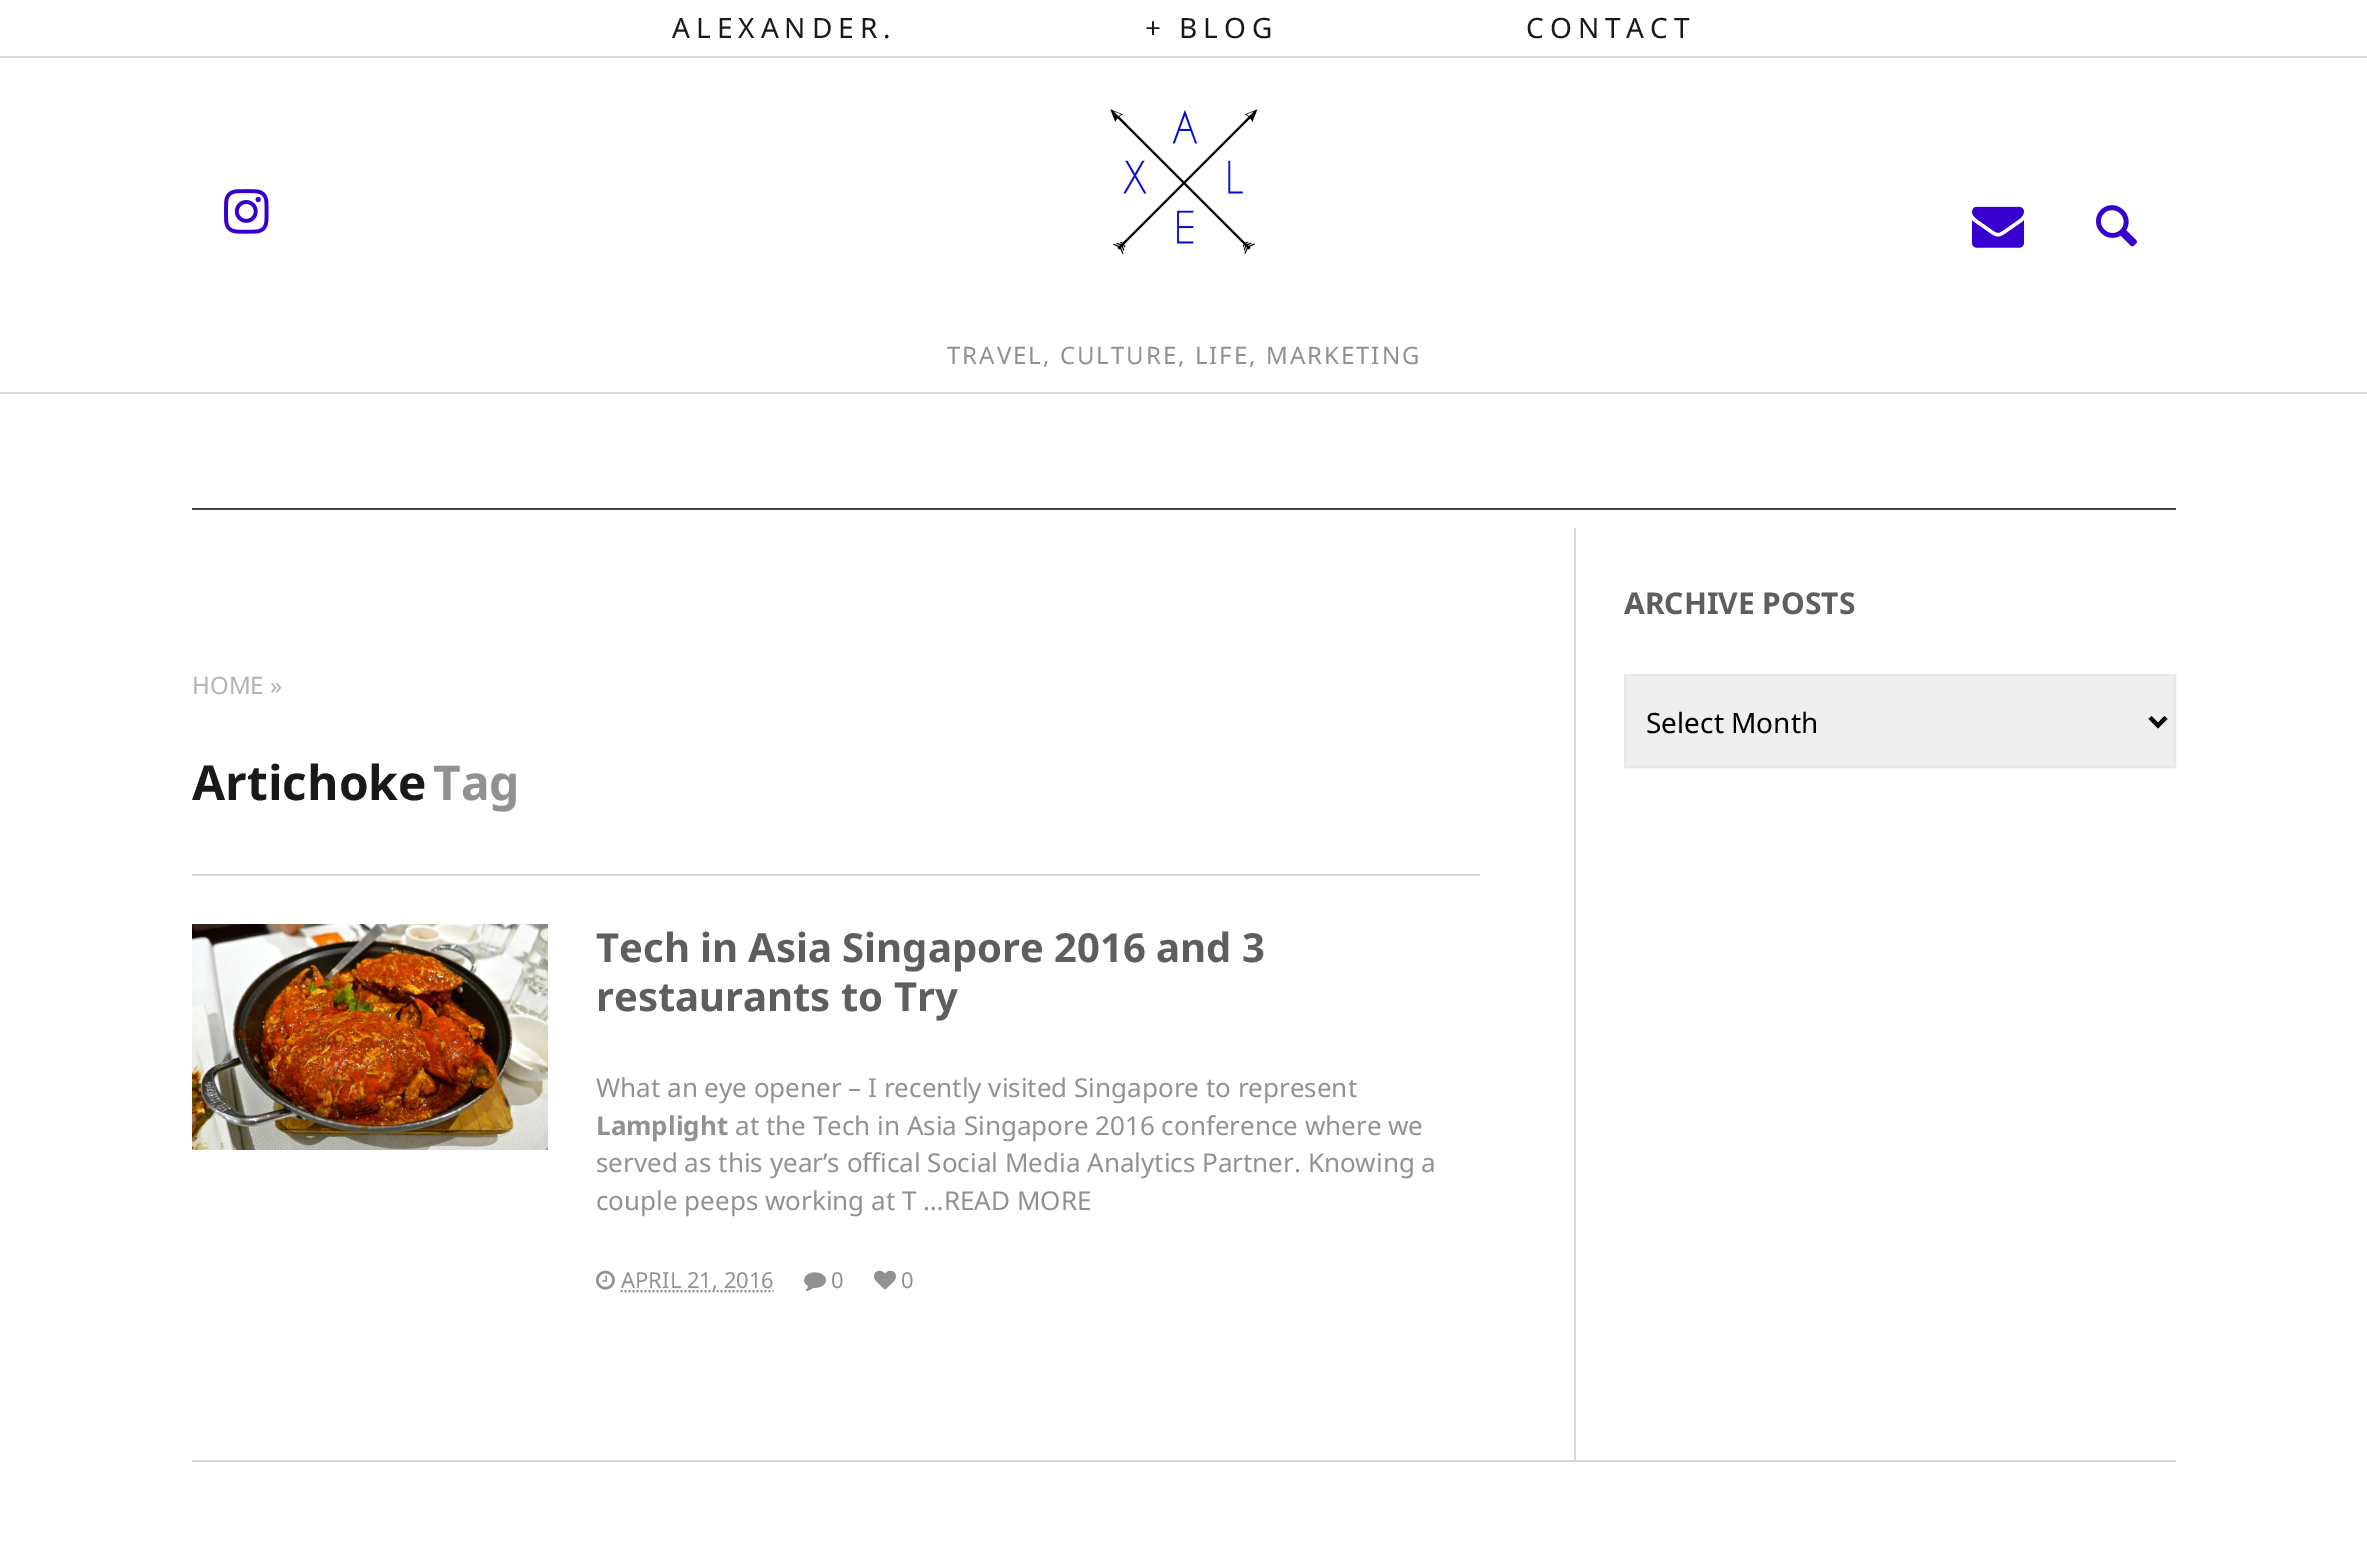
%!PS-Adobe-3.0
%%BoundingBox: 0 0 2367 1555
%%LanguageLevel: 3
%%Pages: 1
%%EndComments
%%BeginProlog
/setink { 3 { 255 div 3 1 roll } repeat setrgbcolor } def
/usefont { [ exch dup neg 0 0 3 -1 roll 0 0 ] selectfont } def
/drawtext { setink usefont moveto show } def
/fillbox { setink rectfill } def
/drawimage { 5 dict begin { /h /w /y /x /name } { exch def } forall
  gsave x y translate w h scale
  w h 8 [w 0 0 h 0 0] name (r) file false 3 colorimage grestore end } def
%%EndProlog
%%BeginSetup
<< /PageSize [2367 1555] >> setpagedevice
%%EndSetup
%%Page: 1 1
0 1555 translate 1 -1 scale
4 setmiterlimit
0 0 2367 1555 255 255 255 fillbox
0 56 2367 2 216 216 216 fillbox
/NotoSans-Regular 28 usefont
26 25 25 setink
672 38 moveto 6 0 (ALEXANDER.) ashow
1145 38 moveto 6 0 (+) ashow
1179 38 moveto 6 0 (BLOG) ashow
1526 38 moveto 6 0 (CONTACT) ashow
0 392 2367 2 216 216 216 fillbox
(assets/img1.rgb) 224 189 45 45 drawimage
(assets/img2.rgb) 1972 206 52 42 drawimage
(assets/img3.rgb) 2096 205 41 42 drawimage
(assets/img4.rgb) 1110 109 148 146 drawimage
/NotoSans-Regular 24 usefont
145 145 145 setink
947 364 moveto 2 0 (TRAVEL, CULTURE, LIFE, MARKETING) ashow
192 508 1984 2 66 66 66 fillbox
192 1460 1984 2 216 216 216 fillbox
(HOME ») 192 694 /NotoSans-Regular 24 179 179 179 drawtext
(Artichoke) 192 800 /OpenSans-Bold 48 26 25 25 drawtext
(Tag) 433 800 /NotoSans-Bold 48 145 145 145 drawtext
192 874 1288 2 216 216 216 fillbox
(assets/img5.rgb) 192 924 356 226 drawimage
(Tech in Asia Singapore 2016 and 3) 596 962 /NotoSans-Bold 40 94 94 94 drawtext
(restaurants to Try) 596 1011 /NotoSans-Bold 40 94 94 94 drawtext
(What an eye opener – I recently visited Singapore to represent) 596 1097 /NotoSans-Regular 26 145 145 145 drawtext
(Lamplight) 596 1135 /NotoSans-Bold 26 145 145 145 drawtext
(at the Tech in Asia Singapore 2016 conference where we) 735 1135 /NotoSans-Regular 26 145 145 145 drawtext
(served as this year’s offical Social Media Analytics Partner. Knowing a) 596 1172 /NotoSans-Regular 26 145 145 145 drawtext
(couple peeps working at T …READ MORE) 596 1210 /NotoSans-Regular 26 145 145 145 drawtext
(assets/img6.rgb) 596 1270 19 20 drawimage
2 setlinewidth
[2 2] 0 setdash
620.5 1291 moveto 773.5 1291 lineto stroke
(APRIL 21, 2016) 621 1288 /NotoSans-Regular 22 145 145 145 drawtext
(assets/img7.rgb) 804 1272 22 20 drawimage
(0) 831 1288 /NotoSans-Regular 22 145 145 145 drawtext
(assets/img8.rgb) 874 1270 22 20 drawimage
(0) 901 1288 /NotoSans-Regular 22 145 145 145 drawtext
1574 528 2 932 216 216 216 fillbox
(ARCHIVE POSTS) 1624 614 /NotoSans-Bold 30 94 94 94 drawtext
239 239 239 setink
1625 675 moveto 2175 675 lineto 2175 767 lineto 1625 767 lineto closepath gsave fill grestore
229 233 235 setink
[] 0 setdash
stroke
0 0 0 setink
4 setlinewidth
2150 717.5 moveto 2158 725.5 lineto 2166 717.5 lineto stroke
(Select Month) 1646 733 /NotoSans-Regular 28 0 0 0 drawtext
showpage
%%EOF
